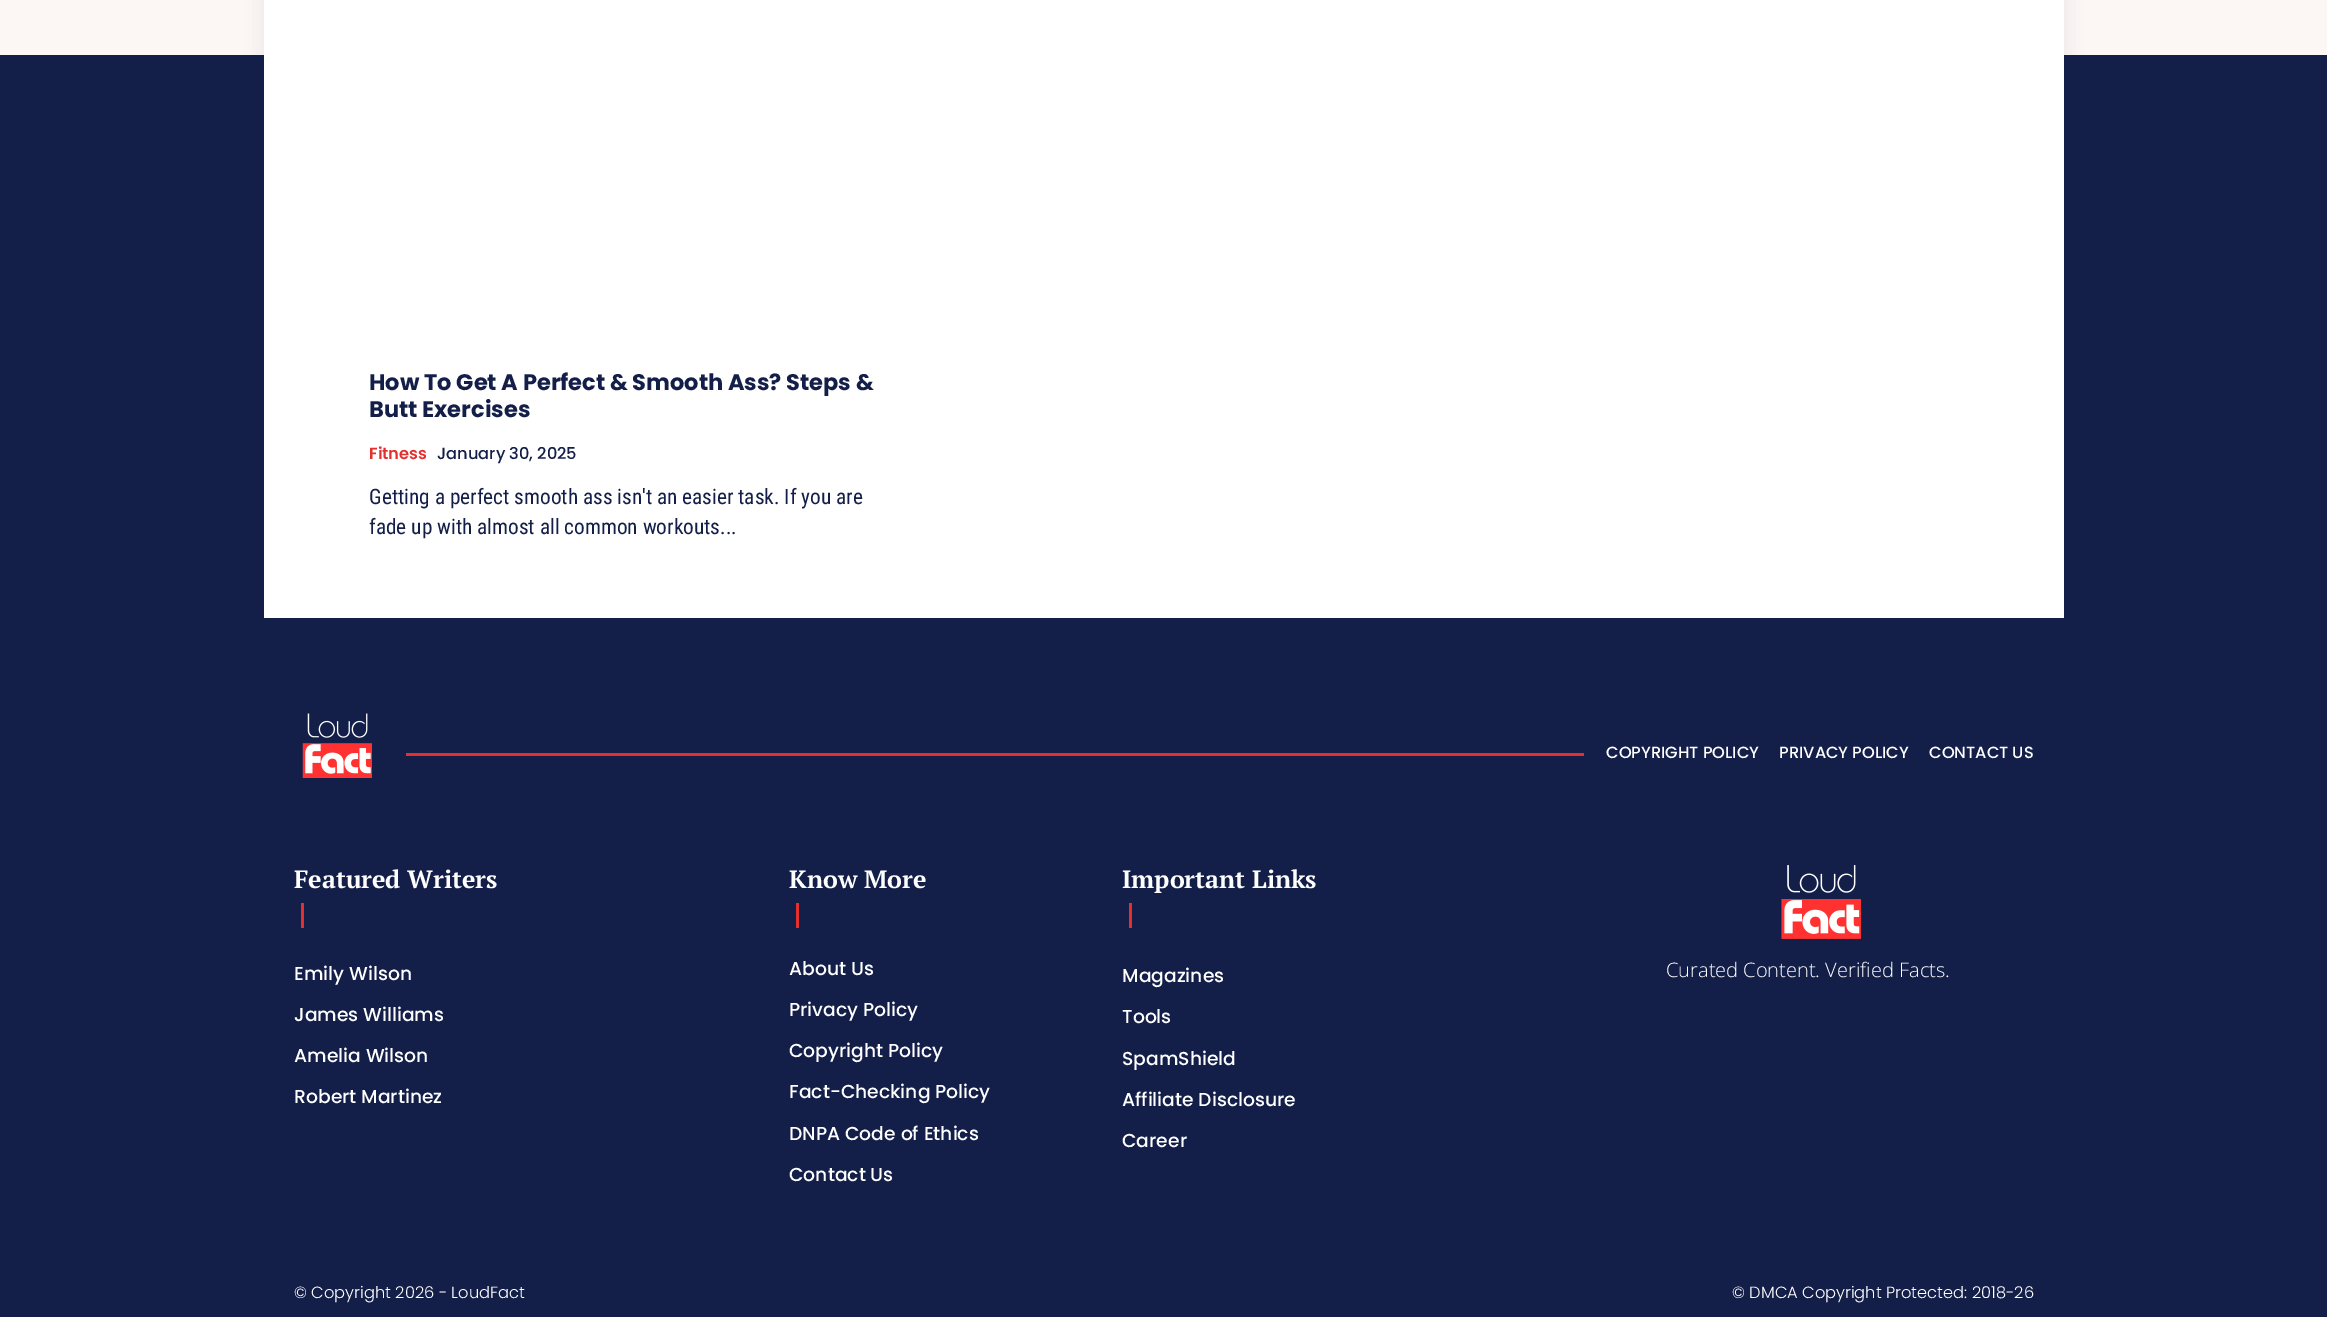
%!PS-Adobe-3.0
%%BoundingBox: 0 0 2327 1317
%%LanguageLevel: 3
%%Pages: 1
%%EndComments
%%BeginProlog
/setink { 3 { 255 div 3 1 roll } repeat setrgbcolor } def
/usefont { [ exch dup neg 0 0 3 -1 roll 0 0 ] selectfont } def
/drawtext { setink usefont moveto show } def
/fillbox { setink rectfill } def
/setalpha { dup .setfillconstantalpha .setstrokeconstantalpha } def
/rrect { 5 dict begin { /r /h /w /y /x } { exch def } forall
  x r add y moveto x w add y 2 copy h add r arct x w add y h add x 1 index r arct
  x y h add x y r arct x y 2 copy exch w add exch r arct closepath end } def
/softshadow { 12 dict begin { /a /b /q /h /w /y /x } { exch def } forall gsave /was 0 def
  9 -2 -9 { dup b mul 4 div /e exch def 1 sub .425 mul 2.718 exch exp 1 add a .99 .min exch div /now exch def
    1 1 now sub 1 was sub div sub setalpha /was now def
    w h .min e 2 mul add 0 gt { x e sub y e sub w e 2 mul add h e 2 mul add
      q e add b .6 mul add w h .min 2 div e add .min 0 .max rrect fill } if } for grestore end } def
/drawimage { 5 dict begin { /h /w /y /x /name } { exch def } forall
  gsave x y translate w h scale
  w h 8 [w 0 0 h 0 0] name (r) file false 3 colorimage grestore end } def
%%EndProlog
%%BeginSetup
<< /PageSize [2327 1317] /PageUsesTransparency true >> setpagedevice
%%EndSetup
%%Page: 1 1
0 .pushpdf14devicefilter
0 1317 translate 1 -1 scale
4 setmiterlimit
0 0 2327 1317 19 31 73 fillbox
0 0 2327 55 252 247 245 fillbox
37 45 86 setink
264 -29 1800 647 0 9.5 0.08 softshadow
264 0 1800 618 255 255 255 fillbox
(How To Get A Perfect & Smooth Ass? Steps &) 369 390 /Poppins-Bold 22.5 19 31 73 drawtext
(Butt Exercises) 369 417 /Poppins-Bold 22.5 19 31 73 drawtext
(Fitness) 369 459 /Poppins-SemiBold 16.25 229 46 46 drawtext
(January 30, 2025) 437 459 /Poppins-Medium 16.25 19 31 73 drawtext
(Getting a perfect smooth ass isn't an easier task. If you are) 369 504 /RobotoCondensed-Regular 21.25 19 31 73 drawtext
(fade up with almost all common workouts...) 369 534 /RobotoCondensed-Regular 21.25 19 31 73 drawtext
(assets/img1.rgb) 302 713 70 65 drawimage
406 753 1178 3 229 46 46 fillbox
(COPYRIGHT POLICY) 1606 758 /Poppins-Medium 16.25 255 255 255 drawtext
(PRIVACY POLICY) 1779 758 /Poppins-Medium 16.25 255 255 255 drawtext
(CONTACT US) 1929 758 /Poppins-Medium 16.25 255 255 255 drawtext
(Featured Writers) 294 888 /PTSerif-Bold 25 255 255 255 drawtext
301 903 3 25 229 46 46 fillbox
(Emily Wilson) 294 980 /Poppins-Medium 18.75 255 255 255 drawtext
(James Williams) 294 1021 /Poppins-Medium 18.75 255 255 255 drawtext
(Amelia Wilson) 294 1062 /Poppins-Medium 18.75 255 255 255 drawtext
(Robert Martinez) 294 1103 /Poppins-Medium 18.75 255 255 255 drawtext
(Know More) 789 888 /PTSerif-Bold 25 255 255 255 drawtext
796 903 3 25 229 46 46 fillbox
(About Us) 789 975 /Poppins-Medium 18.75 255 255 255 drawtext
(Privacy Policy) 789 1016 /Poppins-Medium 18.75 255 255 255 drawtext
(Copyright Policy) 789 1057 /Poppins-Medium 18.75 255 255 255 drawtext
(Fact-Checking Policy) 789 1098 /Poppins-Medium 18.75 255 255 255 drawtext
(DNPA Code of Ethics) 789 1140 /Poppins-Medium 18.75 255 255 255 drawtext
(Contact Us) 789 1181 /Poppins-Medium 18.75 255 255 255 drawtext
(Important Links) 1122 888 /PTSerif-Bold 25 255 255 255 drawtext
1129 903 3 25 229 46 46 fillbox
(Magazines) 1122 982 /Poppins-Medium 18.75 255 255 255 drawtext
(Tools) 1122 1023 /Poppins-Medium 18.75 255 255 255 drawtext
(SpamShield) 1122 1065 /Poppins-Medium 18.75 255 255 255 drawtext
(Affiliate Disclosure) 1122 1106 /Poppins-Medium 18.75 255 255 255 drawtext
(Career) 1122 1147 /Poppins-Medium 18.75 255 255 255 drawtext
(assets/img2.rgb) 1781 865 80 74 drawimage
(Curated Content. Verified Facts.) 1666 977 /OpenSans-Light 20 255 255 255 drawtext
(© Copyright 2026 - LoudFact) 294 1298 /Poppins-Light 16.25 255 255 255 drawtext
(© DMCA Copyright Protected: 2018-26) 1732 1298 /Poppins-Light 16.25 255 255 255 drawtext
.poppdf14devicefilter showpage
%%EOF
